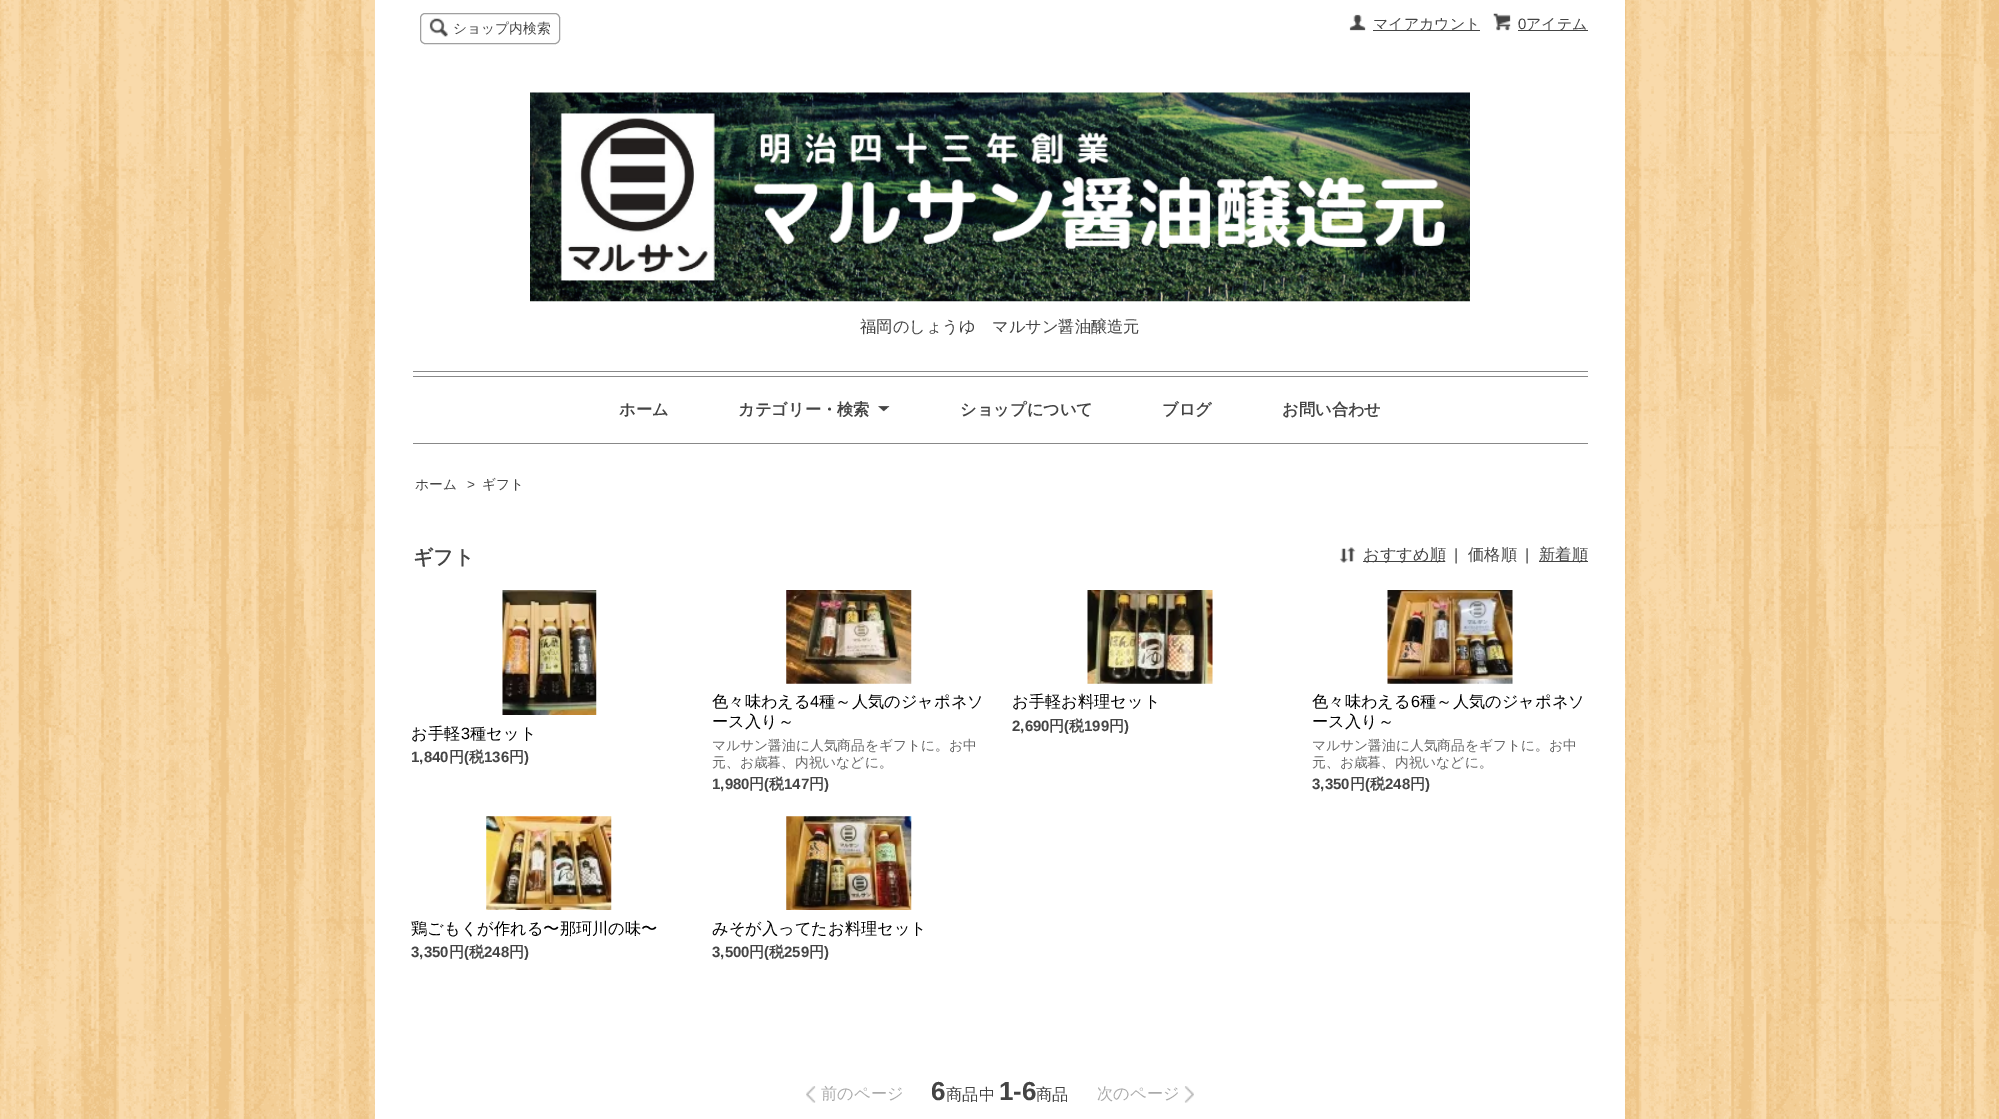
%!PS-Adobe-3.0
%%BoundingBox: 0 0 1999 1119
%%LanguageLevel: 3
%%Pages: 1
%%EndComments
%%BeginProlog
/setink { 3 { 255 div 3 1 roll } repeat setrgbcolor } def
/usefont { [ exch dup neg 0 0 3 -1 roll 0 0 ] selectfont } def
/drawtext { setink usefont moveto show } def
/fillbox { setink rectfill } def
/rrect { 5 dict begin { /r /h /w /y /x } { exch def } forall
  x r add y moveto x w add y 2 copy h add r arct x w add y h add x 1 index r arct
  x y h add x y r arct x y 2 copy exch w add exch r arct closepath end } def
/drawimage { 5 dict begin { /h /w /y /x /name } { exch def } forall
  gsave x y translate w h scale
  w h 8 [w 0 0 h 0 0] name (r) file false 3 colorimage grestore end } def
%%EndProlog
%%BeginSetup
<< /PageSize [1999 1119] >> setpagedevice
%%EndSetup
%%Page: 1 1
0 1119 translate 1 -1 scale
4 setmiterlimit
0 0 1999 1119 255 255 255 fillbox
(assets/img1.rgb) 0 0 1999 1119 drawimage
375 0 1250 1119 255 255 255 fillbox
160 160 160 setink
420.5 13.5 139 30 4.5 rrect stroke
(assets/img2.rgb) 429 18 19 19 drawimage
(ショップ内検索) 453 33 /WenQuanYiZenHei-Medium 13.75 68 68 68 drawtext
(assets/img3.rgb) 1349 14 17 17 drawimage
1373 30 107 1 68 68 68 fillbox
(マイアカウント) 1373 29 /WenQuanYiZenHei-Medium 15 68 68 68 drawtext
(assets/img4.rgb) 1493 13 18 18 drawimage
(0) 1518 29 /LiberationSans-Regular 15 68 68 68 drawtext
1518 30 70 1 68 68 68 fillbox
(アイテム) 1526 29 /WenQuanYiZenHei-Medium 15 68 68 68 drawtext
413 371 1175 1 136 136 136 fillbox
(assets/img5.rgb) 530 92 940 210 drawimage
(福岡のしょうゆ　マルサン醤油醸造元) 860 332 /WenQuanYiZenHei-Medium 16.25 68 68 68 drawtext
413 376 1175 1 136 136 136 fillbox
413 443 1175 1 136 136 136 fillbox
(ホーム) 619 415 /WenQuanYiZenHei-Bold 16.25 68 68 68 drawtext
(カテゴリー・検索) 738 415 /WenQuanYiZenHei-Bold 16.25 68 68 68 drawtext
(assets/img6.rgb) 878 406 12 6 drawimage
(ショップについて) 960 415 /WenQuanYiZenHei-Bold 16.25 68 68 68 drawtext
(ブログ) 1162 415 /WenQuanYiZenHei-Bold 16.25 68 68 68 drawtext
(お問い合わせ) 1282 415 /WenQuanYiZenHei-Bold 16.25 68 68 68 drawtext
(ホーム) 415 489 /WenQuanYiZenHei-Medium 13.75 68 68 68 drawtext
(>) 467 489 /LiberationSans-Regular 13.75 68 68 68 drawtext
(ギフト) 482 489 /WenQuanYiZenHei-Medium 13.75 68 68 68 drawtext
(ギフト) 413 564 /WenQuanYiZenHei-Bold 20 68 68 68 drawtext
(assets/img7.rgb) 1339 547 17 16 drawimage
1363 561 82 1 68 68 68 fillbox
(おすすめ順) 1363 560 /WenQuanYiZenHei-Medium 16.25 68 68 68 drawtext
(|) 1454 560 /LiberationSans-Regular 16.25 68 68 68 drawtext
(価格順) 1468 560 /WenQuanYiZenHei-Medium 16.25 68 68 68 drawtext
(|) 1525 560 /LiberationSans-Regular 16.25 68 68 68 drawtext
1539 561 49 1 68 68 68 fillbox
(新着順) 1539 560 /WenQuanYiZenHei-Medium 16.25 68 68 68 drawtext
(assets/img8.rgb) 502 590 95 125 drawimage
(お手軽) 411 739 /WenQuanYiZenHei-Medium 16.25 0 0 0 drawtext
(3) 461 739 /LiberationSans-Regular 16.25 0 0 0 drawtext
(種セット) 470 739 /WenQuanYiZenHei-Medium 16.25 0 0 0 drawtext
(1,840) 411 762 /LiberationSans-Bold 15 68 68 68 drawtext
(円) 449 762 /WenQuanYiZenHei-Bold 15 68 68 68 drawtext
(\() 464 762 /LiberationSans-Bold 15 68 68 68 drawtext
(税) 469 762 /WenQuanYiZenHei-Bold 15 68 68 68 drawtext
(136) 484 762 /LiberationSans-Bold 15 68 68 68 drawtext
(円) 509 762 /WenQuanYiZenHei-Bold 15 68 68 68 drawtext
(\)) 524 762 /LiberationSans-Bold 15 68 68 68 drawtext
(assets/img9.rgb) 786 590 126 94 drawimage
(色々味わえる) 712 707 /WenQuanYiZenHei-Medium 16.25 0 0 0 drawtext
(4) 810 707 /LiberationSans-Regular 16.25 0 0 0 drawtext
(種～人気のジャポネソ) 819 707 /WenQuanYiZenHei-Medium 16.25 0 0 0 drawtext
(ース入り～) 712 727 /WenQuanYiZenHei-Medium 16.25 0 0 0 drawtext
(マルサン醤油に人気商品をギフトに。お中) 712 750 /WenQuanYiZenHei-Medium 13.75 102 102 102 drawtext
(元、お歳暮、内祝いなどに。) 712 767 /WenQuanYiZenHei-Medium 13.75 102 102 102 drawtext
(1,980) 712 789 /LiberationSans-Bold 15 68 68 68 drawtext
(円) 749 789 /WenQuanYiZenHei-Bold 15 68 68 68 drawtext
(\() 764 789 /LiberationSans-Bold 15 68 68 68 drawtext
(税) 769 789 /WenQuanYiZenHei-Bold 15 68 68 68 drawtext
(147) 784 789 /LiberationSans-Bold 15 68 68 68 drawtext
(円) 809 789 /WenQuanYiZenHei-Bold 15 68 68 68 drawtext
(\)) 824 789 /LiberationSans-Bold 15 68 68 68 drawtext
(assets/img10.rgb) 1087 590 126 94 drawimage
(お手軽お料理セット) 1012 707 /WenQuanYiZenHei-Medium 16.25 0 0 0 drawtext
(2,690) 1012 731 /LiberationSans-Bold 15 68 68 68 drawtext
(円) 1049 731 /WenQuanYiZenHei-Bold 15 68 68 68 drawtext
(\() 1064 731 /LiberationSans-Bold 15 68 68 68 drawtext
(税) 1069 731 /WenQuanYiZenHei-Bold 15 68 68 68 drawtext
(199) 1084 731 /LiberationSans-Bold 15 68 68 68 drawtext
(円) 1109 731 /WenQuanYiZenHei-Bold 15 68 68 68 drawtext
(\)) 1124 731 /LiberationSans-Bold 15 68 68 68 drawtext
(assets/img11.rgb) 1387 590 126 94 drawimage
(色々味わえる) 1312 707 /WenQuanYiZenHei-Medium 16.25 0 0 0 drawtext
(6) 1411 707 /LiberationSans-Regular 16.25 0 0 0 drawtext
(種～人気のジャポネソ) 1420 707 /WenQuanYiZenHei-Medium 16.25 0 0 0 drawtext
(ース入り～) 1312 727 /WenQuanYiZenHei-Medium 16.25 0 0 0 drawtext
(マルサン醤油に人気商品をギフトに。お中) 1312 750 /WenQuanYiZenHei-Medium 13.75 102 102 102 drawtext
(元、お歳暮、内祝いなどに。) 1312 767 /WenQuanYiZenHei-Medium 13.75 102 102 102 drawtext
(3,350) 1312 789 /LiberationSans-Bold 15 68 68 68 drawtext
(円) 1350 789 /WenQuanYiZenHei-Bold 15 68 68 68 drawtext
(\() 1365 789 /LiberationSans-Bold 15 68 68 68 drawtext
(税) 1370 789 /WenQuanYiZenHei-Bold 15 68 68 68 drawtext
(248) 1385 789 /LiberationSans-Bold 15 68 68 68 drawtext
(円) 1410 789 /WenQuanYiZenHei-Bold 15 68 68 68 drawtext
(\)) 1425 789 /LiberationSans-Bold 15 68 68 68 drawtext
(assets/img12.rgb) 486 816 126 94 drawimage
(鶏ごもくが作れる〜那珂川の味〜) 411 934 /WenQuanYiZenHei-Medium 16.25 0 0 0 drawtext
(3,350) 411 957 /LiberationSans-Bold 15 68 68 68 drawtext
(円) 449 957 /WenQuanYiZenHei-Bold 15 68 68 68 drawtext
(\() 464 957 /LiberationSans-Bold 15 68 68 68 drawtext
(税) 469 957 /WenQuanYiZenHei-Bold 15 68 68 68 drawtext
(248) 484 957 /LiberationSans-Bold 15 68 68 68 drawtext
(円) 509 957 /WenQuanYiZenHei-Bold 15 68 68 68 drawtext
(\)) 524 957 /LiberationSans-Bold 15 68 68 68 drawtext
(assets/img13.rgb) 786 816 126 94 drawimage
(みそが入ってたお料理セット) 712 934 /WenQuanYiZenHei-Medium 16.25 0 0 0 drawtext
(3,500) 712 957 /LiberationSans-Bold 15 68 68 68 drawtext
(円) 749 957 /WenQuanYiZenHei-Bold 15 68 68 68 drawtext
(\() 764 957 /LiberationSans-Bold 15 68 68 68 drawtext
(税) 769 957 /WenQuanYiZenHei-Bold 15 68 68 68 drawtext
(259) 784 957 /LiberationSans-Bold 15 68 68 68 drawtext
(円) 809 957 /WenQuanYiZenHei-Bold 15 68 68 68 drawtext
(\)) 824 957 /LiberationSans-Bold 15 68 68 68 drawtext
(assets/img14.rgb) 806 1086 10 17 drawimage
(前のページ) 821 1099 /WenQuanYiZenHei-Medium 16.25 170 170 170 drawtext
(6) 931 1100 /LiberationSans-Bold 26 68 68 68 drawtext
(商品中) 946 1100 /WenQuanYiZenHei-Medium 16.25 68 68 68 drawtext
(1-6) 999 1100 /LiberationSans-Bold 26 68 68 68 drawtext
(商品) 1036 1100 /WenQuanYiZenHei-Medium 16.25 68 68 68 drawtext
(次のページ) 1097 1099 /WenQuanYiZenHei-Medium 16.25 170 170 170 drawtext
(assets/img15.rgb) 1184 1086 10 17 drawimage
showpage
%%EOF
